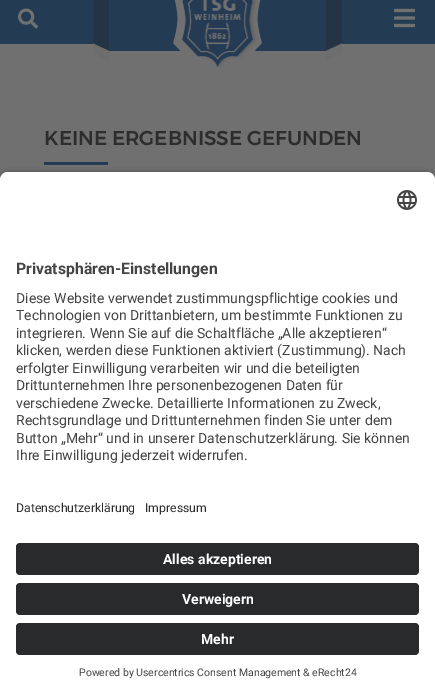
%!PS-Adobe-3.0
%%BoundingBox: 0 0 435 695
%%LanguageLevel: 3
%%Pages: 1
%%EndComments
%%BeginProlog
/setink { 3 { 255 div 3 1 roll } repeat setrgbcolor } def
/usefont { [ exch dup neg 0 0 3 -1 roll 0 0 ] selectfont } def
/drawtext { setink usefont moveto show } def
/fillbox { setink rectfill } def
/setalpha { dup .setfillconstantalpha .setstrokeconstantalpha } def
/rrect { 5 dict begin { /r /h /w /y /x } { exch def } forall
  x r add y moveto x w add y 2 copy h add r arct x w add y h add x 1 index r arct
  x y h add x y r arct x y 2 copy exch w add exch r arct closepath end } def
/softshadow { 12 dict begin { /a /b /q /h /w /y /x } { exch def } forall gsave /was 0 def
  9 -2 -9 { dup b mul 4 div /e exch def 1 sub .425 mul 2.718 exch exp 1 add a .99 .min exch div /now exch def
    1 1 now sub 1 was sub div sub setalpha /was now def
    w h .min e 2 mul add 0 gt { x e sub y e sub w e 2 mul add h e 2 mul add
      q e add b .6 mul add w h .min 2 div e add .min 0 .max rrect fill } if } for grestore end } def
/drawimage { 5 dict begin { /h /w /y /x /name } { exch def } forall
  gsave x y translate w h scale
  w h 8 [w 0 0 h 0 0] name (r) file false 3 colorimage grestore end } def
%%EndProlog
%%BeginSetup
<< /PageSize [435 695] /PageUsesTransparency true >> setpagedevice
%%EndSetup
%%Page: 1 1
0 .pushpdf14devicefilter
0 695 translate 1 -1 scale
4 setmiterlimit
0 0 435 695 112 112 112 fillbox
0 0 435 44 36 60 83 fillbox
109 44 217 7 36 60 83 fillbox
(assets/img1.rgb) 173 0 89 68 drawimage
(assets/img2.rgb) 18 8 20 21 drawimage
(assets/img3.rgb) 394 8 21 20 drawimage
(assets/img4.rgb) 93 0 16 51 drawimage
109 109 109 setink
109 51 moveto 93 43.5 lineto 93 53.5 lineto 109 61 lineto closepath fill
(assets/img5.rgb) 326 0 16 51 drawimage
326 51 moveto 342 43.5 lineto 342 53.5 lineto 326 61 lineto closepath fill
(KEINE ERGEBNISSE GEFUNDEN) 44 145 /Montserrat-Medium 20 45 45 45 drawtext
44 162 64 3 36 60 83 fillbox
0 0 0 setink
0 175 435 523 8 3.5 0.8 softshadow
255 255 255 setink
8 172 moveto 427 172 lineto 431.5 172 435 175.5 435 180 curveto 435 485 lineto 0 485 lineto 0 180 lineto 0 175.5 3.5 172 8 172 curveto closepath fill
(assets/img6.rgb) 397 190 20 20 drawimage
(Privatsphären-Einstellungen) 16 274 /Roboto-Bold 15.75 68 68 68 drawtext
(Diese Website verwendet zustimmungspflichtige cookies und) 16 303 /Roboto-Regular 14 68 68 68 drawtext
(Technologien von Drittanbietern, um bestimmte Funktionen zu) 16 320 /Roboto-Regular 14 68 68 68 drawtext
(integrieren. Wenn Sie auf die Schaltfläche „Alle akzeptieren“) 16 338 /Roboto-Regular 14 68 68 68 drawtext
(klicken, werden diese Funktionen aktiviert \(Zustimmung\). Nach) 16 355 /Roboto-Regular 14 68 68 68 drawtext
(erfolgter Einwilligung verarbeiten wir und die beteiligten) 16 373 /Roboto-Regular 14 68 68 68 drawtext
(Drittunternehmen Ihre personenbezogenen Daten für) 16 390 /Roboto-Regular 14 68 68 68 drawtext
(verschiedene Zwecke. Detaillierte Informationen zu Zweck,) 16 408 /Roboto-Regular 14 68 68 68 drawtext
(Rechtsgrundlage und Drittunternehmen finden Sie unter dem) 16 425 /Roboto-Regular 14 68 68 68 drawtext
(Button „Mehr“ und in unserer Datenschutzerklärung. Sie können) 16 443 /Roboto-Regular 14 68 68 68 drawtext
(Ihre Einwilligung jederzeit widerrufen.) 16 460 /Roboto-Regular 14 68 68 68 drawtext
0 485 435 210 255 255 255 fillbox
(Datenschutzerklärung) 16 512 /Roboto-Regular 12.25 45 45 45 drawtext
(Impressum) 145 512 /Roboto-Regular 12.25 45 45 45 drawtext
41 42 43 setink
16 543 403 32 4 rrect fill
(Alles akzeptieren) 163 564 /Roboto-Bold 14 255 255 255 drawtext
41 42 43 setink
16 583 403 32 4 rrect fill
(Verweigern) 182 604 /Roboto-Bold 14 255 255 255 drawtext
41 42 43 setink
16 623 403 32 4 rrect fill
(Mehr) 201 644 /Roboto-Bold 14 255 255 255 drawtext
(Powered by Usercentrics Consent Management & eRecht24) 79 676 /Roboto-Regular 10.5 68 68 68 drawtext
.poppdf14devicefilter showpage
%%EOF
